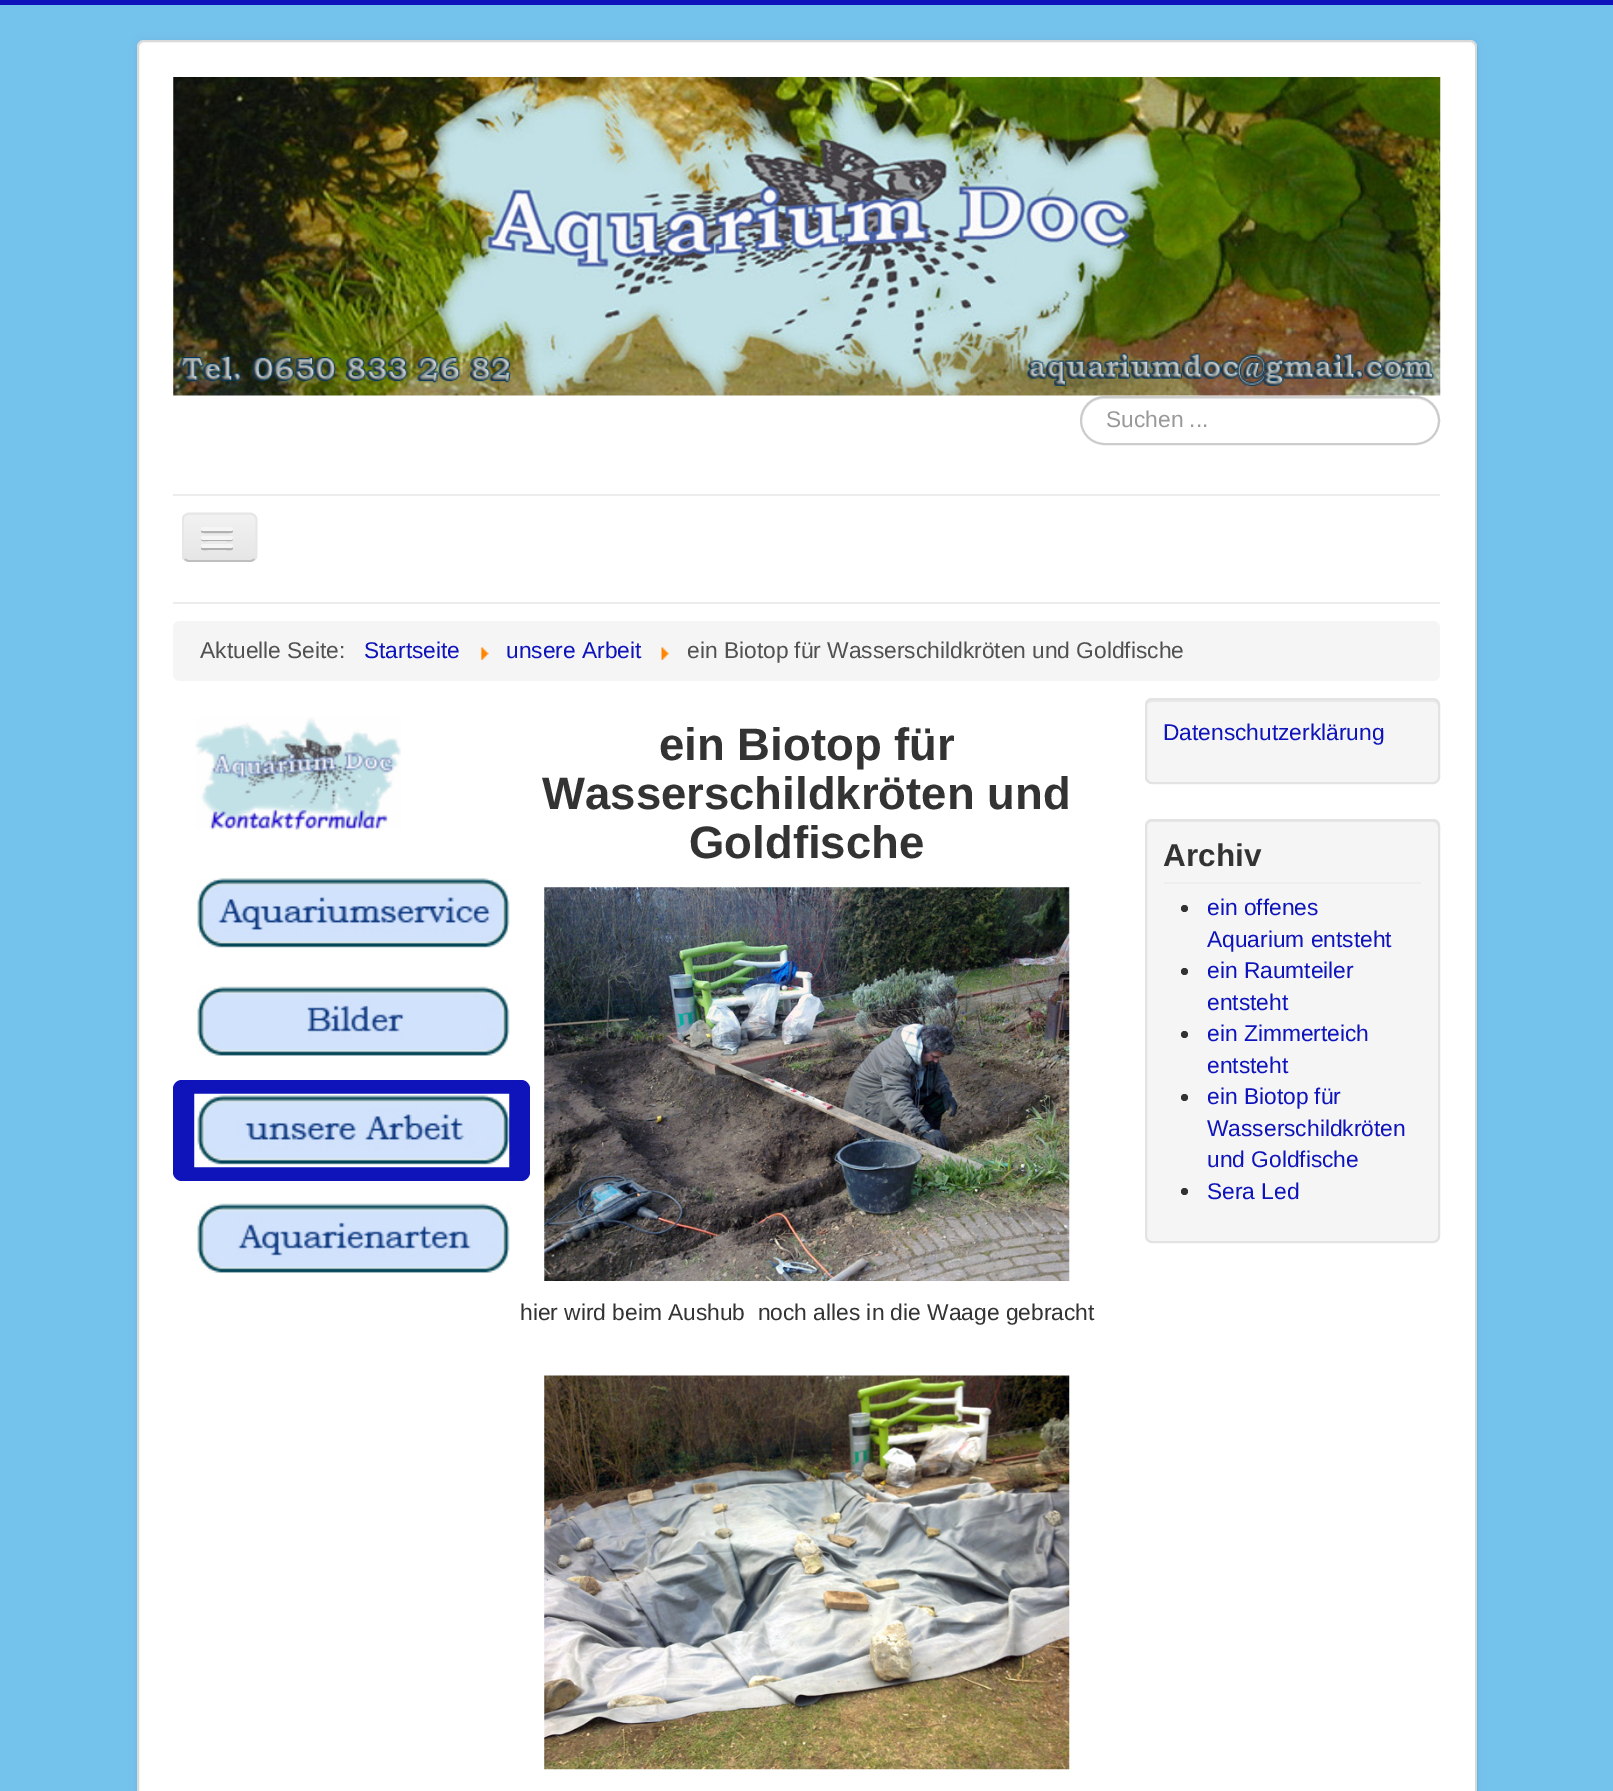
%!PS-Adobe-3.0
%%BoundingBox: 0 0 1613 1791
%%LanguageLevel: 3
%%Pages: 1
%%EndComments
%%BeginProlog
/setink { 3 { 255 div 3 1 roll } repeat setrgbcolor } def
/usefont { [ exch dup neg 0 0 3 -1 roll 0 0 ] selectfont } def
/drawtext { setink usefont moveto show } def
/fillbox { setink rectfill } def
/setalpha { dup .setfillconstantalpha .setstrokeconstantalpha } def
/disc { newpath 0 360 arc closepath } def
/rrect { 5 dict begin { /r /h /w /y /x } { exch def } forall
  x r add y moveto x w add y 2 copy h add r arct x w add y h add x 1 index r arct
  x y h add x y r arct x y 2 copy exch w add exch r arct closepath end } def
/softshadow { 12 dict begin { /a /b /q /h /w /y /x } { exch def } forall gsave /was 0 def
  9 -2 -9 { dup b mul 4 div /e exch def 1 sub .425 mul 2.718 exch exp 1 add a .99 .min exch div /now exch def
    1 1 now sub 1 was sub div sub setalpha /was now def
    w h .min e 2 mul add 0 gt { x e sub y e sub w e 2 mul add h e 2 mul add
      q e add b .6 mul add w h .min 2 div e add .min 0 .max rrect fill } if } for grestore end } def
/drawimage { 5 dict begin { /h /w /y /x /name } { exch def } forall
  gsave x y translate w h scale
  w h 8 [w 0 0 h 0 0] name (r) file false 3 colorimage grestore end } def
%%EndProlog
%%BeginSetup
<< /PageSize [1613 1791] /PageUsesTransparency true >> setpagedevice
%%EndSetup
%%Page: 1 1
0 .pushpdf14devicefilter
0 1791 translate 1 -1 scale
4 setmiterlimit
0 0 1613 1791 116 195 237 fillbox
0 0 1613 5 15 20 186 fillbox
0 0 0 setink
137 40 1340 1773 7 5 0.05 softshadow
255 255 255 setink
137 40 1340 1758 7 rrect fill
0.15 setalpha
0 0 0 setink
2 setlinewidth
138 41 1338 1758 6 rrect stroke
1 setalpha
(assets/img1.rgb) 173 77 1268 319 drawimage
236 236 236 setink
1104 399 moveto 1416 399 lineto 1428 399 1438 409 1438 422 curveto 1438 426 1437 430 1435 433 curveto 1438 429 1439 425 1439 420 curveto 1439 407 1429 397 1416 397 curveto 1105 397 lineto 1092 397 1082 407 1082 420 curveto 1082 421 lineto 1083 408 1092 399 1104 399 curveto closepath fill
204 204 204 setink
1081 397 358 47 23.5 rrect stroke
(Suchen ...) 1106 427 /LiberationSans-Regular 22.75 153 153 153 drawtext
173 494 1267 2 236 236 236 fillbox
173 602 1267 2 236 236 236 fillbox
237 237 237 setink
182 513 75 49 7 rrect fill
gsave
182 513 75 49 7 rrect clip newpath
gsave 182 515 moveto 257 515 lineto 257 560 lineto 182 560 lineto closepath clip newpath
<< /ShadingType 2 /ColorSpace /DeviceRGB /Coords [220 515 220 560] /Extend [true true] /Function << /FunctionType 2 /Domain [0 1] /C0 [0.949 0.949 0.949] /C1 [0.902 0.902 0.902] /N 1 >> >> shfill grestore
grestore
191 191 191 setink
1.8 setlinewidth
254.5 559 moveto 253.5 560 252 561 250 561 curveto 189 561 lineto 187.5 561 186 560 184.5 559 curveto stroke
230 230 230 setink
184.5 559 moveto 183.5 558 183 556.5 183 555 curveto 183 520 lineto 183 518 183.5 516.5 184.5 515.5 curveto 186 514.5 187.5 513.5 189 513.5 curveto 250 513.5 lineto 252 513.5 253.5 514.5 254.5 515.5 curveto 255.5 516.5 256.5 518 256.5 520 curveto 256.5 555 lineto 256.5 556.5 255.5 558 254.5 559 curveto stroke
178 178 178 setink
201.5 529.5 moveto 201 530.5 201 531.5 201.5 532.5 curveto 203 533.5 214.5 533 217 533 curveto 219.5 533 231 533.5 232.5 532.5 curveto 233 531.5 233 530.5 232.5 529.5 curveto 231 530 lineto 203 530 lineto closepath fill
245 245 245 setink
201 527 32 4 2 rrect fill
176 176 176 setink
201.5 538 moveto 201 539.5 lineto 201.5 542 206.5 541 207.5 541 curveto 226.5 541 lineto 227.5 541 232.5 542 233 539.5 curveto 232.5 538 lineto 232.5 538.5 232 539 231 539 curveto 203 539 lineto 202 539 201.5 538.5 201.5 538 curveto closepath fill
245 245 245 setink
201 536 32 4 2 rrect fill
175 175 175 setink
201.5 547 moveto 201 548.5 lineto 201.5 551 206.5 550 207.5 550 curveto 226.5 550 lineto 227.5 550 232.5 551 233 548.5 curveto 232.5 547 lineto 232.5 547.5 231.5 548 231 548 curveto 203 548 lineto 202.5 548 201.5 547.5 201.5 547 curveto closepath fill
245 245 245 setink
201 544 32 4 2 rrect fill
173 621 1267 60 7 rrect fill
(Aktuelle Seite:) 200 658 /LiberationSans-Regular 22.75 81 81 81 drawtext
(Startseite) 364 658 /LiberationSans-Regular 22.75 15 20 186 drawtext
(assets/img2.rgb) 480 647 9 13 drawimage
(unsere Arbeit) 506 658 /LiberationSans-Regular 22.75 15 20 186 drawtext
(assets/img3.rgb) 661 647 8 13 drawimage
(ein Biotop für Wasserschildkröten und Goldfische) 687 658 /LiberationSans-Regular 22.75 81 81 81 drawtext
(assets/img4.rgb) 195 717 206 113 drawimage
(assets/img5.rgb) 197 878 313 70 drawimage
(assets/img6.rgb) 197 986 313 70 drawimage
15 20 186 setink
173 1080 357 101 9 rrect fill
(assets/img7.rgb) 194 1093 316 75 drawimage
(assets/img8.rgb) 197 1203 313 70 drawimage
(ein Biotop für) 659 760 /LiberationSans-Bold 45.5 51 51 51 drawtext
(Wasserschildkröten und) 542 809 /LiberationSans-Bold 45.5 51 51 51 drawtext
(Goldfische) 689 858 /LiberationSans-Bold 45.5 51 51 51 drawtext
(assets/img9.rgb) 544 887 526 394 drawimage
(hier wird beim Aushub  noch alles in die Waage gebracht) 520 1320 /LiberationSans-Regular 22.75 51 51 51 drawtext
(assets/img10.rgb) 544 1375 526 395 drawimage
245 245 245 setink
1145 698 295 86 7 rrect fill
233 233 233 setink
1152 702 moveto 1433 702 lineto 1436 702 1438 704 1438 707 curveto 1438 780 lineto 1439 779 1439 778 1439 777 curveto 1439 705 lineto 1439 702 1437 700 1434 700 curveto 1151 700 lineto 1148 700 1146 702 1146 705 curveto 1146 707 lineto 1146 704 1149 702 1152 702 curveto closepath fill
227 227 227 setink
2 setlinewidth
1146 699 293 84 6 rrect stroke
(Datenschutzerklärung) 1163 740 /LiberationSans-Regular 22.75 15 20 186 drawtext
245 245 245 setink
1145 819 295 424 7 rrect fill
233 233 233 setink
1152 822 moveto 1433 822 lineto 1436 822 1438 825 1438 828 curveto 1438 1237 lineto 1437 1240 lineto 1438 1239 1439 1237 1439 1236 curveto 1439 826 lineto 1439 823 1437 821 1434 821 curveto 1151 821 lineto 1148 821 1146 823 1146 826 curveto 1146 828 lineto 1146 825 1149 822 1152 822 curveto closepath fill
227 227 227 setink
1146 820 293 422 6 rrect stroke
1164 882 257 2 238 238 238 fillbox
(Archiv) 1163 866 /LiberationSans-Bold 31.5 51 51 51 drawtext
1184.5 908.5 3.5 disc fill
(ein offenes) 1207 915 /LiberationSans-Regular 22.75 15 20 186 drawtext
(Aquarium entsteht) 1207 947 /LiberationSans-Regular 22.75 15 20 186 drawtext
51 51 51 setink
1184.5 971.5 3.5 disc fill
(ein Raumteiler) 1207 978 /LiberationSans-Regular 22.75 15 20 186 drawtext
(entsteht) 1207 1010 /LiberationSans-Regular 22.75 15 20 186 drawtext
51 51 51 setink
1184.5 1034.5 3.5 disc fill
(ein Zimmerteich) 1207 1041 /LiberationSans-Regular 22.75 15 20 186 drawtext
(entsteht) 1207 1073 /LiberationSans-Regular 22.75 15 20 186 drawtext
51 51 51 setink
1184.5 1097.5 3.5 disc fill
(ein Biotop für) 1207 1104 /LiberationSans-Regular 22.75 15 20 186 drawtext
(Wasserschildkröten) 1207 1136 /LiberationSans-Regular 22.75 15 20 186 drawtext
(und Goldfische) 1207 1167 /LiberationSans-Regular 22.75 15 20 186 drawtext
51 51 51 setink
1184.5 1191.5 3.5 disc fill
(Sera Led) 1207 1199 /LiberationSans-Regular 22.75 15 20 186 drawtext
.poppdf14devicefilter showpage
%%EOF
